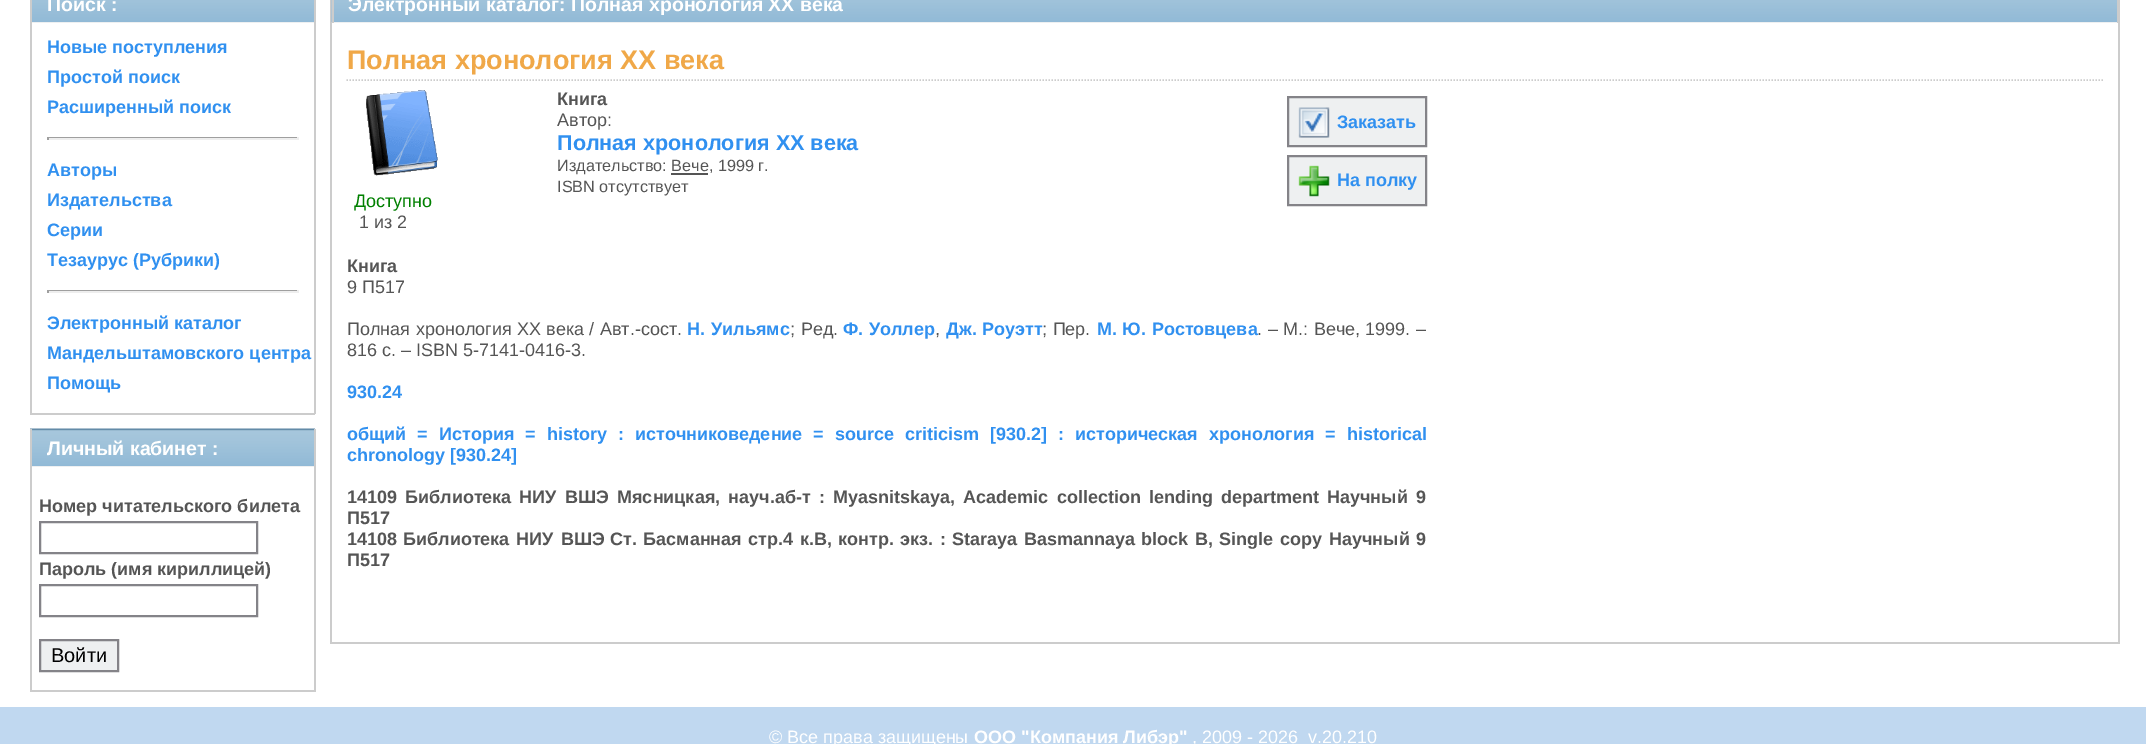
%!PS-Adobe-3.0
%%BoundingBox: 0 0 2146 744
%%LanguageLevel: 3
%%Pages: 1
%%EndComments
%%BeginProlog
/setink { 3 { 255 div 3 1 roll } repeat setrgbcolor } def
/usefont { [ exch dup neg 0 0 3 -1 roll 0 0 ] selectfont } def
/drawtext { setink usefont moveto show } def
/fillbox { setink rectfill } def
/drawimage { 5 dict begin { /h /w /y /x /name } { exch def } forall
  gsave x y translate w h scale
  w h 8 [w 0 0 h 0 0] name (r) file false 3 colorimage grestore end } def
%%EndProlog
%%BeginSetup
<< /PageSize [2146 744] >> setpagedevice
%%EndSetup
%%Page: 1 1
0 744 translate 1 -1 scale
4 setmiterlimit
0 0 2146 744 255 255 255 fillbox
32 22 282 1 238 240 241 fillbox
(assets/img1.rgb) 32 0 282 22 drawimage
314 0 2 414 204 204 204 fillbox
30 0 2 23 204 204 204 fillbox
(Поиск :) 47 11 /LiberationSans-Bold 19.5 255 255 255 drawtext
30 413 285 2 204 204 204 fillbox
30 23 2 391 204 204 204 fillbox
(Новые поступления) 47 53 /LiberationSans-Bold 18 48 144 240 drawtext
(Простой поиск) 47 83 /LiberationSans-Bold 18 48 144 240 drawtext
(Расширенный поиск) 47 113 /LiberationSans-Bold 18 48 144 240 drawtext
47 137 252 1 159 159 159 fillbox
297 137 2 3 238 238 238 fillbox
47 138 252 2 238 238 238 fillbox
47 137 2 3 159 159 159 fillbox
(Авторы) 47 176 /LiberationSans-Bold 18 48 144 240 drawtext
(Издательства) 47 206 /LiberationSans-Bold 18 48 144 240 drawtext
(Серии) 47 236 /LiberationSans-Bold 18 48 144 240 drawtext
(Тезаурус \(Рубрики\)) 47 266 /LiberationSans-Bold 18 48 144 240 drawtext
47 290 252 1 159 159 159 fillbox
297 290 2 3 238 238 238 fillbox
47 291 252 2 238 238 238 fillbox
47 290 2 3 159 159 159 fillbox
(Электронный каталог) 47 329 /LiberationSans-Bold 18 48 144 240 drawtext
(Мандельштамовского центра) 47 359 /LiberationSans-Bold 18 48 144 240 drawtext
(Помощь) 47 389 /LiberationSans-Bold 18 48 144 240 drawtext
32 466 282 1 238 240 241 fillbox
(assets/img2.rgb) 30 428 285 38 drawimage
314 429 2 263 204 204 204 fillbox
30 429 2 38 204 204 204 fillbox
(Личный кабинет :) 47 455 /LiberationSans-Bold 19.5 255 255 255 drawtext
30 690 285 2 204 204 204 fillbox
30 467 2 225 204 204 204 fillbox
(Номер читательского билета) 39 512 /LiberationSans-Bold 18 85 85 85 drawtext
132 131 136 setink
2 setlinewidth
40 522 217 31 rectstroke
(Пароль \(имя кириллицей\)) 39 575 /LiberationSans-Bold 18 85 85 85 drawtext
132 131 136 setink
40 585 217 31 rectstroke
238 240 241 setink
40 640 moveto 118 640 lineto 118 671 lineto 40 671 lineto closepath gsave fill grestore
132 131 136 setink
stroke
(Войти) 51 662 /LiberationSans-Regular 20 0 0 0 drawtext
2118 0 2 644 204 204 204 fillbox
330 642 1790 2 204 204 204 fillbox
330 0 2 644 204 204 204 fillbox
334 22 1783 1 238 240 241 fillbox
(assets/img3.rgb) 331 0 1786 22 drawimage
2117 0 1 23 204 204 204 fillbox
332 0 2 23 204 204 204 fillbox
(Электронный каталог: Полная хронология XX века) 348 11 /LiberationSans-Bold 19.5 255 255 255 drawtext
204 204 204 setink
1.5 setlinewidth
[1.5 1.5] 0 setdash
346.5 80 moveto 2103 80 lineto stroke
(Полная хронология XX века) 347 69 /LiberationSans-Bold 27 240 168 72 drawtext
(Книга) 557 105 /LiberationSans-Bold 18 85 85 85 drawtext
(Автор:) 557 126 /LiberationSans-Regular 18 85 85 85 drawtext
(Полная хронология XX века) 557 150 /LiberationSans-Bold 21.6 48 144 240 drawtext
(Издательство: Вече, 1999 г.) 557 171 /LiberationSans-Regular 16.25 85 85 85 drawtext
671 173 37 2 85 85 85 fillbox
(ISBN отсутствует) 557 192 /LiberationSans-Regular 16.25 85 85 85 drawtext
238 240 241 setink
1288 97 moveto 1426 97 lineto 1426 146 lineto 1288 146 lineto closepath gsave fill grestore
132 131 136 setink
2 setlinewidth
[] 0 setdash
stroke
(assets/img4.rgb) 1298 107 32 31 drawimage
(Заказать) 1337 128 /LiberationSans-Bold 18 48 144 240 drawtext
238 240 241 setink
1288 156 moveto 1426 156 lineto 1426 205 lineto 1288 205 lineto closepath gsave fill grestore
132 131 136 setink
stroke
(assets/img5.rgb) 1298 165 32 32 drawimage
(На полку) 1337 186 /LiberationSans-Bold 18 48 144 240 drawtext
(assets/img6.rgb) 366 90 72 86 drawimage
(Доступно) 354 207 /LiberationSans-Regular 18 0 128 0 drawtext
(1 из 2) 359 228 /LiberationSans-Regular 18 85 85 85 drawtext
(Книга) 347 272 /LiberationSans-Bold 18 85 85 85 drawtext
(9 П517) 347 293 /LiberationSans-Regular 18 85 85 85 drawtext
347 335 moveto 0.5 0 32 (Полная хронология XX века / Авт.-сост.) widthshow
/LiberationSans-Bold 18 usefont
48 144 240 setink
687 335 moveto 1 0 32 (Н. Уильямс) widthshow
/LiberationSans-Regular 18 usefont
85 85 85 setink
790 335 moveto 0.5 0 32 (; Ред.) widthshow
/LiberationSans-Bold 18 usefont
48 144 240 setink
843 335 moveto 0.5 0 32 (Ф. Уоллер) widthshow
(,) 935 335 /LiberationSans-Regular 18 85 85 85 drawtext
/LiberationSans-Bold 18 usefont
48 144 240 setink
946 335 moveto 0.5 0 32 (Дж. Роуэтт) widthshow
/LiberationSans-Regular 18 usefont
85 85 85 setink
1042 335 moveto 0.5 0 32 (; Пер.) widthshow
/LiberationSans-Bold 18 usefont
48 144 240 setink
1097 335 moveto 0.5 0 32 (М. Ю. Ростовцева) widthshow
/LiberationSans-Regular 18 usefont
85 85 85 setink
1257 335 moveto 0.5 0 32 (. – М.: Вече, 1999. –) widthshow
(816 с. – ISBN 5-7141-0416-3.) 347 356 /LiberationSans-Regular 18 85 85 85 drawtext
(930.24) 347 398 /LiberationSans-Bold 18 48 144 240 drawtext
347 440 moveto 6 0 32 (общий = История = history : источниковедение = source criticism [930.2] : историческая хронология = historical) widthshow
(chronology [930.24]) 347 461 /LiberationSans-Bold 18 48 144 240 drawtext
(14109) 347 503 /LiberationSans-Bold 18 85 85 85 drawtext
405 503 moveto 3 0 32 (Библиотека НИУ ВШЭ) widthshow
617 503 moveto 3.25 0 32 (Мясницкая, науч.аб-т : Myasnitskaya, Academic collection lending department) widthshow
(Научный) 1327 503 /LiberationSans-Bold 18 85 85 85 drawtext
(9) 1416 503 /LiberationSans-Bold 18 85 85 85 drawtext
(П517) 347 524 /LiberationSans-Bold 18 85 85 85 drawtext
(14108) 347 545 /LiberationSans-Bold 18 85 85 85 drawtext
403 545 moveto 2 0 32 (Библиотека НИУ ВШЭ) widthshow
610 545 moveto 1.5 0 32 (Ст. Басманная стр.4 к.В, контр. экз. : Staraya Basmannaya block B, Single copy) widthshow
(Научный) 1329 545 /LiberationSans-Bold 18 85 85 85 drawtext
(9) 1416 545 /LiberationSans-Bold 18 85 85 85 drawtext
(П517) 347 566 /LiberationSans-Bold 18 85 85 85 drawtext
0 707 2146 37 192 216 240 fillbox
(© Все права защищены) 769 743 /LiberationSans-Regular 18 255 255 255 drawtext
(ООО "Компания Либэр") 974 743 /LiberationSans-Bold 18 255 255 255 drawtext
(, 2009 - 2026  v.20.210) 1192 743 /LiberationSans-Regular 18 255 255 255 drawtext
showpage
%%EOF
